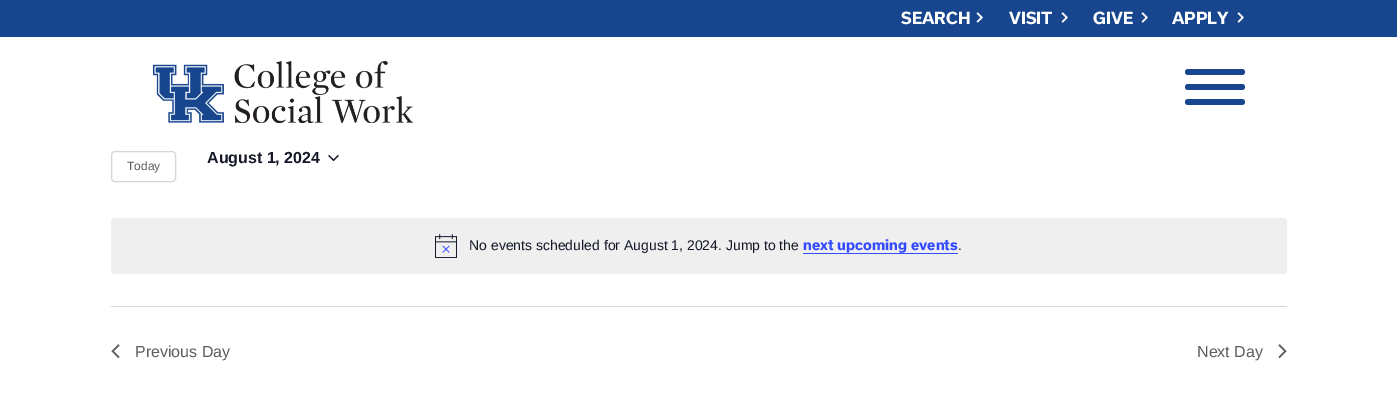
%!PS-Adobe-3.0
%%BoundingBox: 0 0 1397 398
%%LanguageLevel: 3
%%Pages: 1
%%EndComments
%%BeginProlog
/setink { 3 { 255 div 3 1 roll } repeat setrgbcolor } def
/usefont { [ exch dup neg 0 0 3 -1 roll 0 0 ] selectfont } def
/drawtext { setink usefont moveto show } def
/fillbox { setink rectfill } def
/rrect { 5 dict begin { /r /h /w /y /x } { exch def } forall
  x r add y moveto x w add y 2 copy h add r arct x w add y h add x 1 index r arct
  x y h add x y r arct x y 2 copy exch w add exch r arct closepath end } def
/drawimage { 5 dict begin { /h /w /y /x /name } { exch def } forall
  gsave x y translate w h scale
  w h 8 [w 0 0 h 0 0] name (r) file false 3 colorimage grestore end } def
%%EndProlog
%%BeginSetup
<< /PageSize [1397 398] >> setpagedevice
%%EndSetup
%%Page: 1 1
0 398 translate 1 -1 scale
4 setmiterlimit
0 0 1397 398 255 255 255 fillbox
0 0 1397 37 23 70 143 fillbox
(SEARCH) 901 24 /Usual-Bold 16 255 255 255 drawtext
(assets/img1.rgb) 976 12 7 11 drawimage
(VISIT) 1009 24 /Usual-Bold 16 255 255 255 drawtext
(assets/img1.rgb) 1061 12 7 11 drawimage
(GIVE) 1093 24 /Usual-Bold 16 255 255 255 drawtext
(assets/img1.rgb) 1141 12 7 11 drawimage
(APPLY) 1172 24 /Usual-Bold 16 255 255 255 drawtext
(assets/img1.rgb) 1237 12 7 11 drawimage
(assets/img2.rgb) 153 61 260 62 drawimage
23 70 143 setink
1185 69 60 6 3 rrect fill
1185 84 60 6 3 rrect fill
1185 99 60 6 3 rrect fill
213 213 213 setink
111.5 151.5 64 30 3.5 rrect stroke
(Today) 127 170 /LiberationSans-Regular 12 93 93 93 drawtext
(August 1, 2024) 207 163 /LiberationSans-Bold 16 20 24 39 drawtext
(assets/img3.rgb) 328 154 11 8 drawimage
239 239 240 setink
111 218 1176 56 4 rrect fill
(assets/img4.rgb) 435 234 22 24 drawimage
(No events scheduled for August 1, 2024. Jump to the) 469 250 /LiberationSans-Regular 14 20 24 39 drawtext
(next upcoming events) 803 250 /Usual-Bold 14 51 74 255 drawtext
803 253 155 1 51 74 255 fillbox
(.) 958 250 /LiberationSans-Regular 14 20 24 39 drawtext
111 306 1176 1 213 213 213 fillbox
(assets/img5.rgb) 111 344 9 15 drawimage
(Previous Day) 135 357 /LiberationSans-Regular 16 93 93 93 drawtext
(Next Day) 1197 357 /LiberationSans-Regular 16 93 93 93 drawtext
(assets/img6.rgb) 1278 344 9 15 drawimage
showpage
%%EOF
